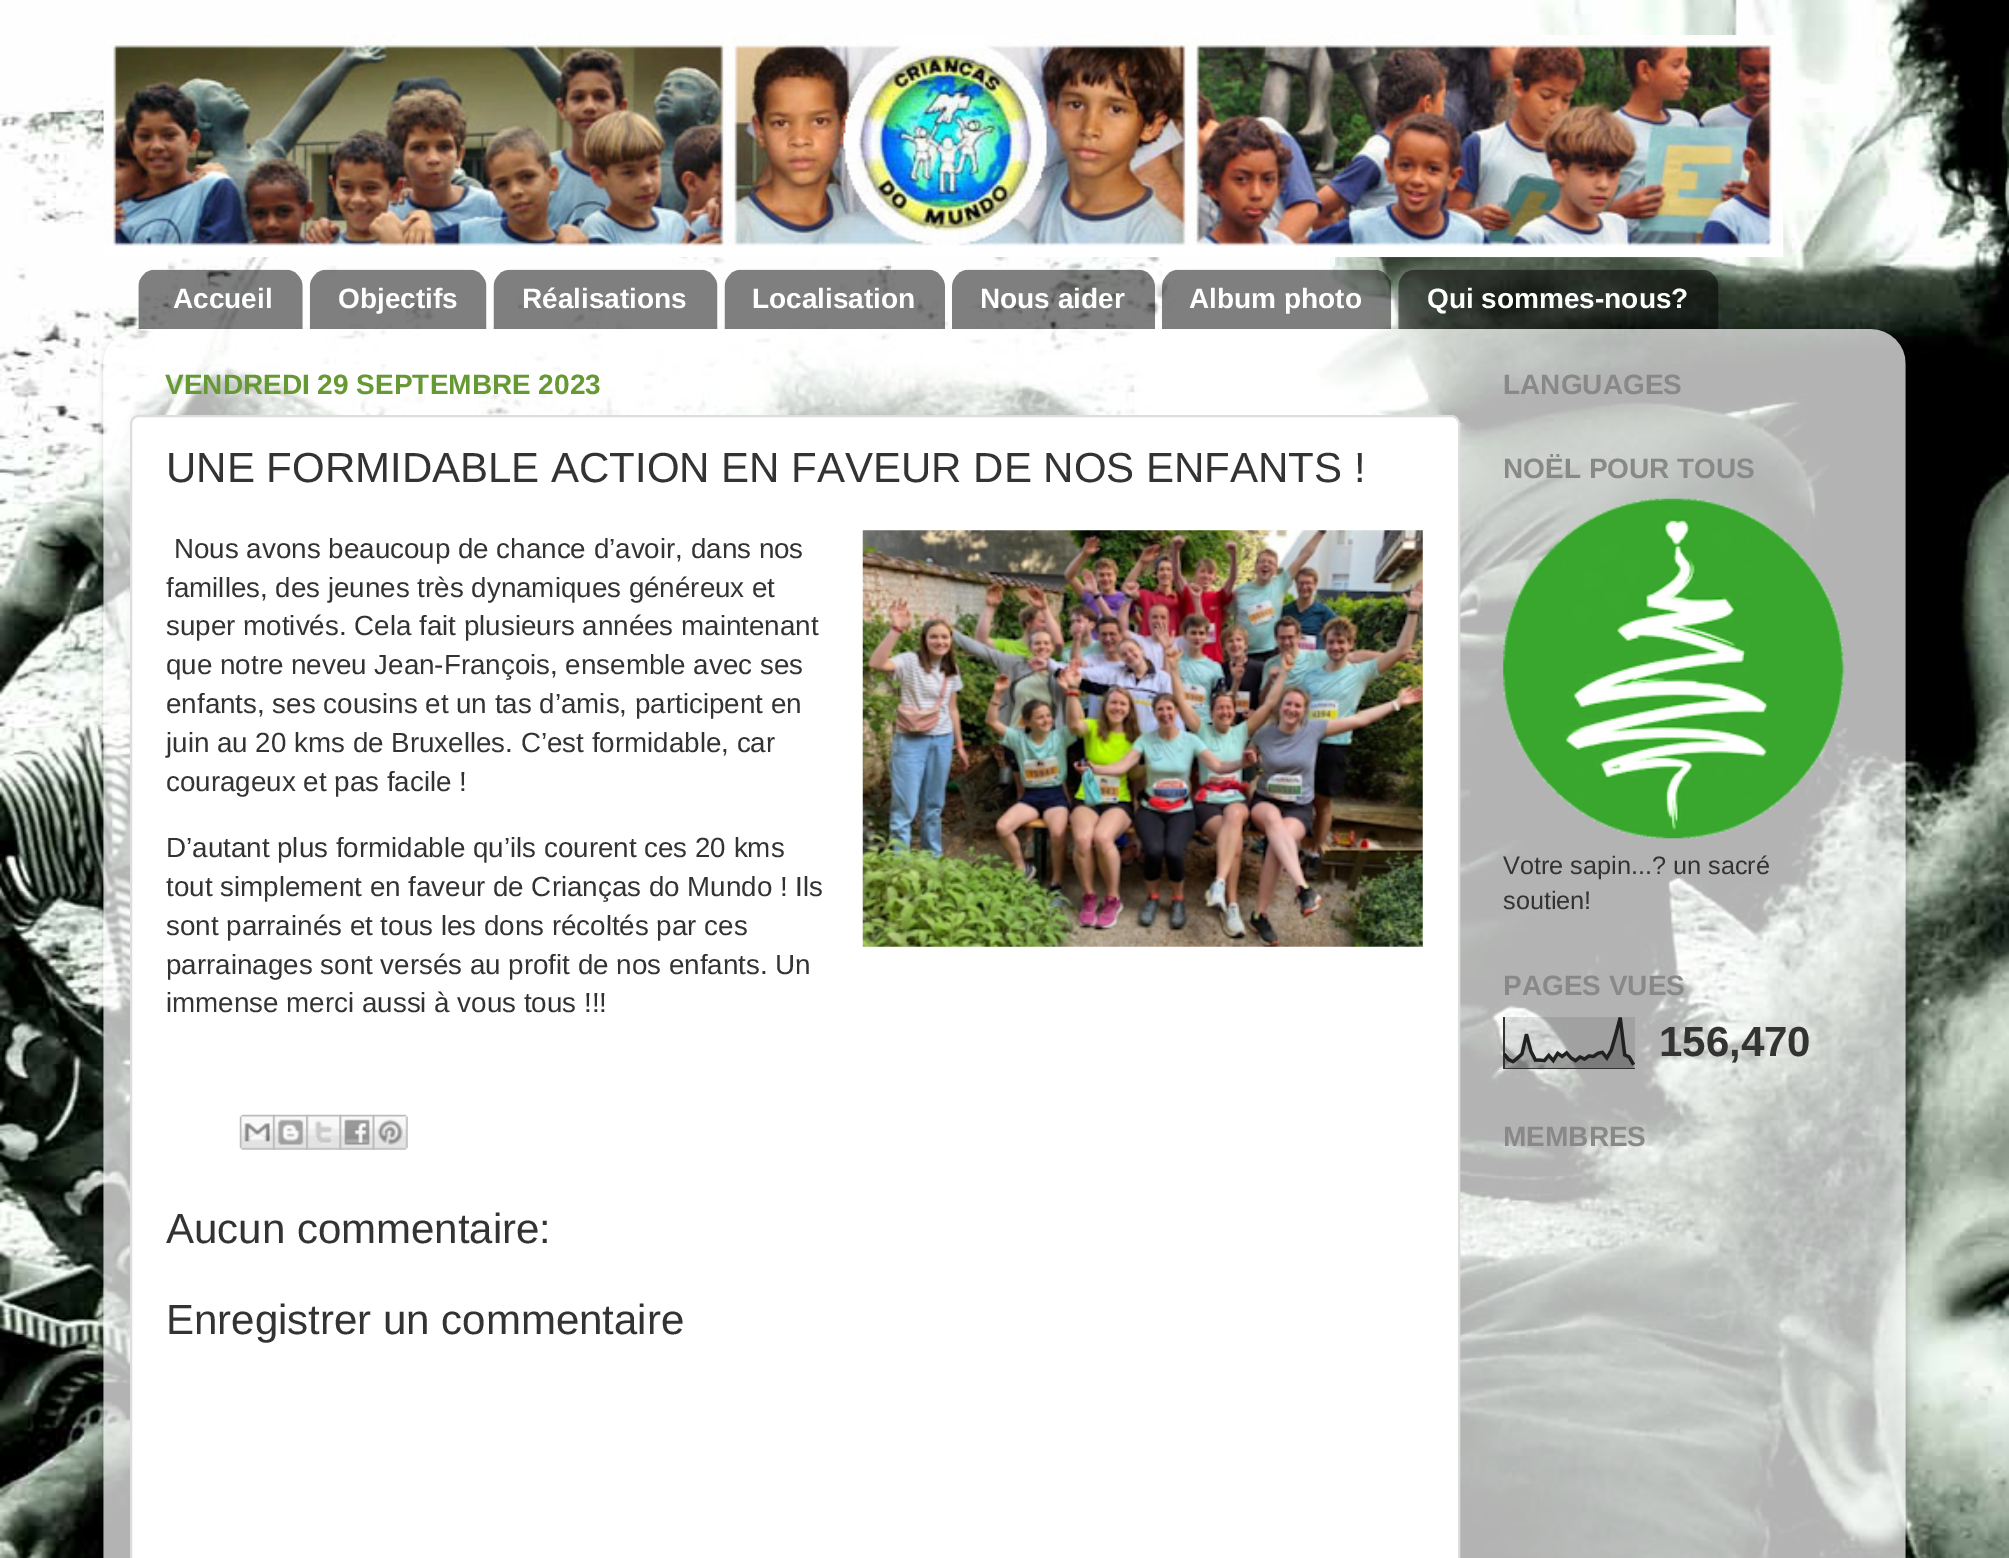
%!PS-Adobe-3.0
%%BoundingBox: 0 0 2009 1558
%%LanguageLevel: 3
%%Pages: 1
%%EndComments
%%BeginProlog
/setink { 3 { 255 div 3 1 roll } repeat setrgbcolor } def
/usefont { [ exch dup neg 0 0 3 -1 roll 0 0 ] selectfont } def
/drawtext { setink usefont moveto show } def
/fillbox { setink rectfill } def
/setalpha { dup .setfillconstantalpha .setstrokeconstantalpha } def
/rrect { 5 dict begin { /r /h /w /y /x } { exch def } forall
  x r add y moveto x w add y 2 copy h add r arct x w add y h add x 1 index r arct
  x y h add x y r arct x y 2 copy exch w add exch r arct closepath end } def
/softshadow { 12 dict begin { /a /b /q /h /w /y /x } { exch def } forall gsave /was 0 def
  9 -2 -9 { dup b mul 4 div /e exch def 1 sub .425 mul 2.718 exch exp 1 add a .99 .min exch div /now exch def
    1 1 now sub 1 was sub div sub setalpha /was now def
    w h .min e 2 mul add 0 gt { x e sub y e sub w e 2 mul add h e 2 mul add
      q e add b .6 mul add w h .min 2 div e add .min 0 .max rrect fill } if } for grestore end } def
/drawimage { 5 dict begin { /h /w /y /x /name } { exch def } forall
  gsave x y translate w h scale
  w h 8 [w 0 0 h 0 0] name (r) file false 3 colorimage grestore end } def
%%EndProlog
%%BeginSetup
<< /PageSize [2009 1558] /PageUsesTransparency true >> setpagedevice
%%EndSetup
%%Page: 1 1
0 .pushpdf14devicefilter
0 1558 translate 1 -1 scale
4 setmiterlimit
0 0 2009 1558 255 255 255 fillbox
(assets/img1.rgb) 0 0 2009 1558 drawimage
(assets/img2.rgb) 103 35 1681 223 drawimage
(assets/img3.rgb) 138 269 165 60 drawimage
(Accueil) 173 308 /LiberationSans-Bold 28 255 255 255 drawtext
(assets/img4.rgb) 309 269 178 60 drawimage
(Objectifs) 338 308 /LiberationSans-Bold 28 255 255 255 drawtext
(assets/img5.rgb) 493 269 225 60 drawimage
(Réalisations) 522 308 /LiberationSans-Bold 28 255 255 255 drawtext
(assets/img6.rgb) 724 269 221 60 drawimage
(Localisation) 752 308 /LiberationSans-Bold 28 255 255 255 drawtext
(assets/img7.rgb) 952 269 203 60 drawimage
(Nous aider) 980 308 /LiberationSans-Bold 28 255 255 255 drawtext
(assets/img8.rgb) 1162 269 230 60 drawimage
(Album photo) 1189 308 /LiberationSans-Bold 28 255 255 255 drawtext
(assets/img9.rgb) 1398 269 321 60 drawimage
(Qui sommes-nous?) 1427 308 /LiberationSans-Bold 28 255 255 255 drawtext
gsave
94 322 moveto 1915 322 lineto 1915 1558 lineto 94 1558 lineto closepath 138 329 moveto 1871 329 lineto 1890.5 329 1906 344.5 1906 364 curveto 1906 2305 lineto 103 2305 lineto 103 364 lineto 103 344.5 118.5 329 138 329 curveto closepath eoclip newpath
0 0 0 setink
103 331 1803 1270 35 2.5 0.15 softshadow
grestore
(assets/img10.rgb) 103 329 1803 1229 drawimage
(VENDREDI 29 SEPTEMBRE 2023) 165 394 /LiberationSans-Bold 28 102 153 51 drawtext
255 255 255 setink
131 416 1328 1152 8 rrect gsave fill grestore
221 221 221 setink
2 setlinewidth
stroke
(UNE FORMIDABLE ACTION EN FAVEUR DE NOS ENFANTS !) 166 482 /LiberationSans-Regular 42 51 51 51 drawtext
(Nous avons beaucoup de chance d’avoir, dans nos) 174 558 /LiberationSans-Regular 27.75 51 51 51 drawtext
(assets/img11.rgb) 862 530 561 417 drawimage
(familles, des jeunes très dynamiques généreux et) 166 597 /LiberationSans-Regular 27.75 51 51 51 drawtext
(super motivés. Cela fait plusieurs années maintenant) 166 635 /LiberationSans-Regular 27.75 51 51 51 drawtext
(que notre neveu Jean-François, ensemble avec ses) 166 674 /LiberationSans-Regular 27.75 51 51 51 drawtext
(enfants, ses cousins et un tas d’amis, participent en) 166 713 /LiberationSans-Regular 27.75 51 51 51 drawtext
(juin au 20 kms de Bruxelles. C’est formidable, car) 166 752 /LiberationSans-Regular 27.75 51 51 51 drawtext
(courageux et pas facile !) 166 791 /LiberationSans-Regular 27.75 51 51 51 drawtext
(D’autant plus formidable qu’ils courent ces 20 kms) 166 857 /LiberationSans-Regular 27.75 51 51 51 drawtext
(tout simplement en faveur de Crianças do Mundo ! Ils) 166 896 /LiberationSans-Regular 27.75 51 51 51 drawtext
(sont parrainés et tous les dons récoltés par ces) 166 935 /LiberationSans-Regular 27.75 51 51 51 drawtext
(parrainages sont versés au profit de nos enfants. Un) 166 974 /LiberationSans-Regular 27.75 51 51 51 drawtext
(immense merci aussi à vous tous !!!) 166 1012 /LiberationSans-Regular 27.75 51 51 51 drawtext
(assets/img12.rgb) 239 1114 36 36 drawimage
(assets/img13.rgb) 273 1114 35 36 drawimage
(assets/img14.rgb) 306 1114 36 36 drawimage
(assets/img15.rgb) 339 1114 36 36 drawimage
(assets/img16.rgb) 372 1114 36 36 drawimage
(Aucun commentaire:) 166 1243 /LiberationSans-Regular 42 51 51 51 drawtext
(Enregistrer un commentaire) 166 1334 /LiberationSans-Regular 42 51 51 51 drawtext
(LANGUAGES) 1503 394 /LiberationSans-Bold 28 136 136 136 drawtext
(NOËL POUR TOUS) 1503 478 /LiberationSans-Bold 28 136 136 136 drawtext
(assets/img17.rgb) 1503 498 342 341 drawimage
(Votre sapin...? un sacré) 1503 874 /LiberationSans-Regular 25.25 51 51 51 drawtext
(soutien!) 1503 909 /LiberationSans-Regular 25.25 51 51 51 drawtext
(PAGES VUES) 1503 995 /LiberationSans-Bold 28 136 136 136 drawtext
(assets/img18.rgb) 1503 1017 132 52 drawimage
(156,470) 1659 1056 /LiberationSans-Bold 42 51 51 51 drawtext
(MEMBRES) 1503 1146 /LiberationSans-Bold 28 136 136 136 drawtext
.poppdf14devicefilter showpage
%%EOF
